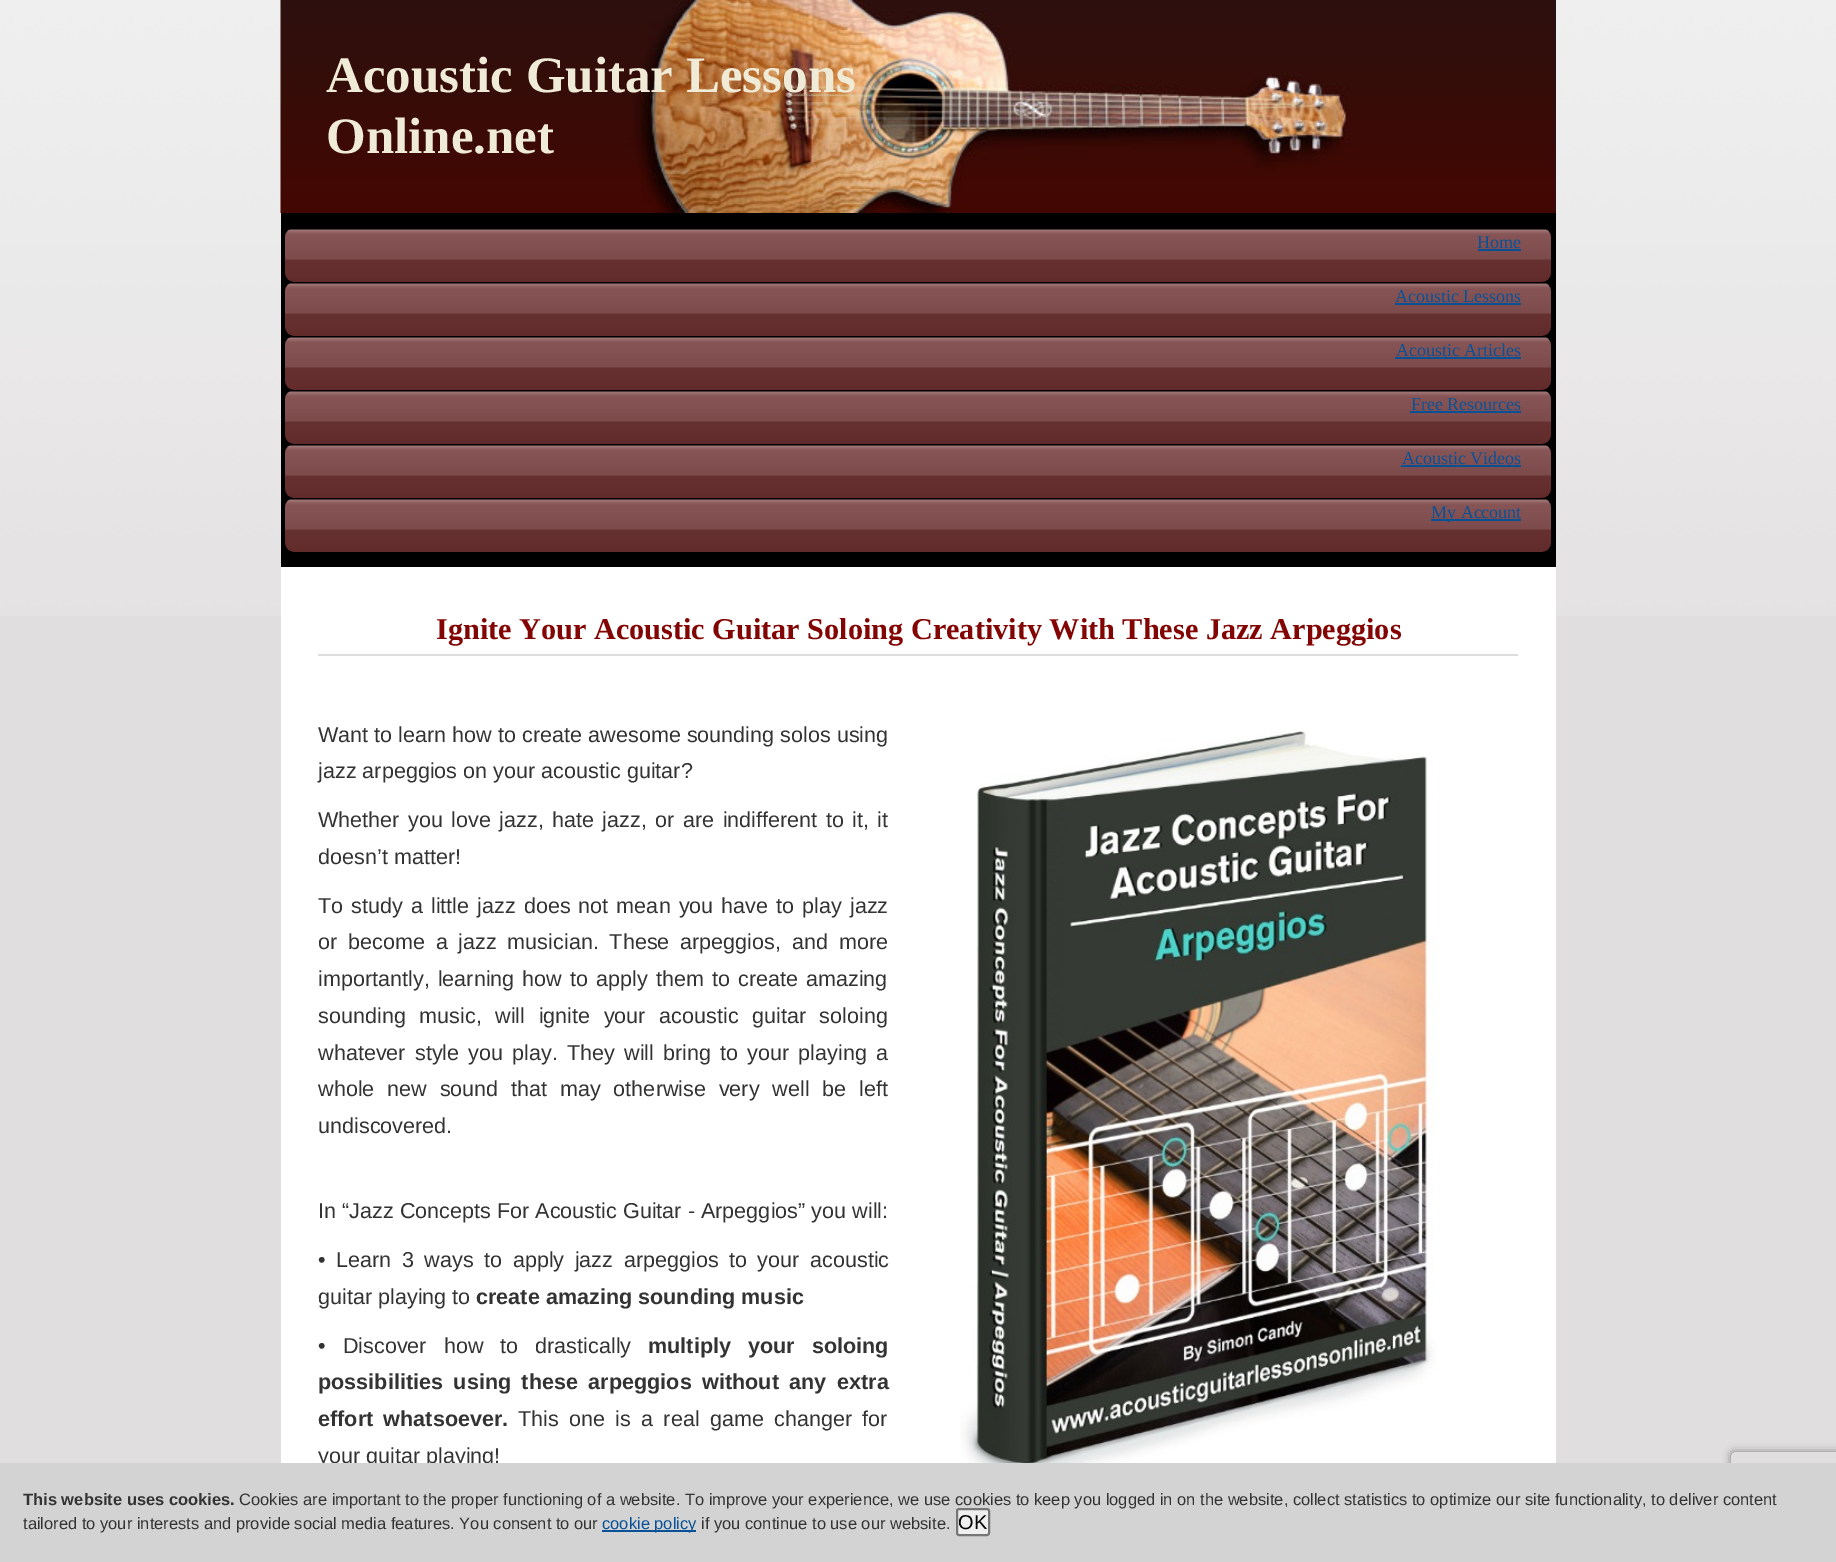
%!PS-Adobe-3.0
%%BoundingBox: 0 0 1836 1562
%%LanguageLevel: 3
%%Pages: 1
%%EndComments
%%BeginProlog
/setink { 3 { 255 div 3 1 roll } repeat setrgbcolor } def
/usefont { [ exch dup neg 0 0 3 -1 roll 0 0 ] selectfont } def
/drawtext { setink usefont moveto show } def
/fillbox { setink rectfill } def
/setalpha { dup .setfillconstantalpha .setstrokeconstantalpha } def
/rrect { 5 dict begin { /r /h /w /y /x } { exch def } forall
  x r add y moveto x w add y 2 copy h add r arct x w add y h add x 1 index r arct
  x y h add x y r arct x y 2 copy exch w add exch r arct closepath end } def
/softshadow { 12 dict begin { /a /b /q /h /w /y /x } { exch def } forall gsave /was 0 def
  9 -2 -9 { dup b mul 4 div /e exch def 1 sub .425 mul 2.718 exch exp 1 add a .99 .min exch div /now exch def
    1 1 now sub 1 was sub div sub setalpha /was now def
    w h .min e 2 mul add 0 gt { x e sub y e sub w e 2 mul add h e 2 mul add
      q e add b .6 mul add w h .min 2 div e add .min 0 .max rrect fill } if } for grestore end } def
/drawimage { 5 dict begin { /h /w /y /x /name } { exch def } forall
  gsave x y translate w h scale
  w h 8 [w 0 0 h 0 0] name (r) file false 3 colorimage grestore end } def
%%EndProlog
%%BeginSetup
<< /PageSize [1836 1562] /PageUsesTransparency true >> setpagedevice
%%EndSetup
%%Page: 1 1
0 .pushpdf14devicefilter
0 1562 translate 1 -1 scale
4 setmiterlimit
0 0 1836 1562 224 222 223 fillbox
(assets/img1.rgb) 0 0 1836 616 drawimage
281 567 1275 896 255 255 255 fillbox
1555 0 1 213 12 26 62 fillbox
(assets/img2.rgb) 280 0 1276 213 drawimage
(Acoustic Guitar Lessons) 326 92 /LiberationSerif-Bold 51 240 235 215 drawtext
(Online.net) 326 153 /LiberationSerif-Bold 51 240 235 215 drawtext
281 213 1275 354 0 0 0 fillbox
(assets/img3.rgb) 285 229 1266 53 drawimage
(Home) 1477 248 /LiberationSerif-Regular 18 9 81 151 drawtext
1478 249 43 2 9 81 151 fillbox
(assets/img3.rgb) 285 283 1266 53 drawimage
(Acoustic Lessons) 1395 302 /LiberationSerif-Regular 18 9 81 151 drawtext
1395 303 126 2 9 81 151 fillbox
(assets/img3.rgb) 285 337 1266 53 drawimage
(Acoustic Articles) 1396 356 /LiberationSerif-Regular 18 9 81 151 drawtext
1395 357 126 2 9 81 151 fillbox
(assets/img3.rgb) 285 391 1266 53 drawimage
(Free Resources) 1411 410 /LiberationSerif-Regular 18 9 81 151 drawtext
1410 411 111 2 9 81 151 fillbox
(assets/img3.rgb) 285 445 1266 53 drawimage
(Acoustic Videos) 1402 464 /LiberationSerif-Regular 18 9 81 151 drawtext
1401 465 120 2 9 81 151 fillbox
(assets/img3.rgb) 285 499 1266 53 drawimage
1431 519 90 2 9 81 151 fillbox
(My Account) 1431 518 /LiberationSerif-Regular 18 9 81 151 drawtext
318 654 1200 2 221 221 221 fillbox
(Ignite Your Acoustic Guitar Soloing Creativity With These Jazz Arpeggios) 436 639 /LiberationSerif-Bold 30.25 130 5 3 drawtext
(Want to learn how to create awesome sounding solos using) 318 742 /LiberationSans-Regular 21.6 51 51 51 drawtext
(jazz arpeggios on your acoustic guitar?) 318 778 /LiberationSans-Regular 21.6 51 51 51 drawtext
(assets/img4.rgb) 960 730 477 733 drawimage
318 827 moveto 2.4 0 32 (Whether you love jazz, hate jazz, or are indifferent to it, it) widthshow
(doesn’t matter!) 318 864 /LiberationSans-Regular 21.6 51 51 51 drawtext
318 913 moveto 2 0 32 (To study a little jazz does not mean you have to play jazz) widthshow
318 949 moveto 4.75 0 32 (or become a jazz musician. These arpeggios, and more) widthshow
318 986 moveto 2 0 32 (importantly, learning how to apply them to create amazing) widthshow
318 1023 moveto 7.5 0 32 (sounding music, will ignite your acoustic guitar soloing) widthshow
318 1060 moveto 3.1 0 32 (whatever style you play. They will bring to your playing a) widthshow
318 1096 moveto 6.75 0 32 (whole new sound that may otherwise very well be left) widthshow
(undiscovered.) 318 1133 /LiberationSans-Regular 21.6 51 51 51 drawtext
(In “Jazz Concepts For Acoustic Guitar - Arpeggios” you will:) 318 1218 /LiberationSans-Regular 21.6 51 51 51 drawtext
318 1267 moveto 4.5 0 32 (• Learn 3 ways to apply jazz arpeggios to your acoustic) widthshow
(guitar playing to) 318 1304 /LiberationSans-Regular 21.6 51 51 51 drawtext
(create amazing sounding music) 476 1304 /LiberationSans-Bold 21.6 51 51 51 drawtext
/LiberationSans-Regular 21.6 usefont
318 1353 moveto 11 0 32 (• Discover how to drastically) widthshow
/LiberationSans-Bold 21.6 usefont
648 1353 moveto 11 0 32 (multiply your soloing) widthshow
318 1389 moveto 4.5 0 32 (possibilities using these arpeggios without any extra) widthshow
318 1426 moveto 4.25 0 32 (effort whatsoever.) widthshow
/LiberationSans-Regular 21.6 usefont
518 1426 moveto 4.25 0 32 (This one is a real game changer for) widthshow
(your guitar playing!) 318 1463 /LiberationSans-Regular 21.6 51 51 51 drawtext
gsave
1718 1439 moveto 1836 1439 lineto 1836 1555 lineto 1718 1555 lineto closepath 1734 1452 moveto 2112 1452 lineto 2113.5 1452 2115 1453.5 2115 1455 curveto 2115 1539 lineto 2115 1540.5 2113.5 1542 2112 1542 curveto 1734 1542 lineto 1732.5 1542 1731 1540.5 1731 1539 curveto 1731 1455 lineto 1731 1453.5 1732.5 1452 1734 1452 curveto closepath eoclip newpath
128 128 128 setink
1731 1452 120 90 3 4 1 softshadow
grestore
0 1463 1836 99 211 211 211 fillbox
(This website uses cookies.) 23 1505 /LiberationSans-Bold 16.5 51 51 51 drawtext
(Cookies are important to the proper functioning of a website. To improve your experience, we use cookies to keep you logged in on the website, collect statistics to optimize our site functionality, to deliver content) 239 1505 /LiberationSans-Regular 16.5 51 51 51 drawtext
(tailored to your interests and provide social media features. You consent to our) 23 1529 /LiberationSans-Regular 16.5 51 51 51 drawtext
602 1530 94 2 9 81 151 fillbox
(cookie policy) 602 1529 /LiberationSans-Regular 16.5 9 81 151 drawtext
(if you continue to use our website.) 701 1529 /LiberationSans-Regular 16.5 51 51 51 drawtext
239 239 239 setink
957 1509 32 26 2 rrect gsave fill grestore
118 118 118 setink
2 setlinewidth
stroke
(OK) 958 1529 /LiberationSans-Regular 20 0 0 0 drawtext
.poppdf14devicefilter showpage
%%EOF
